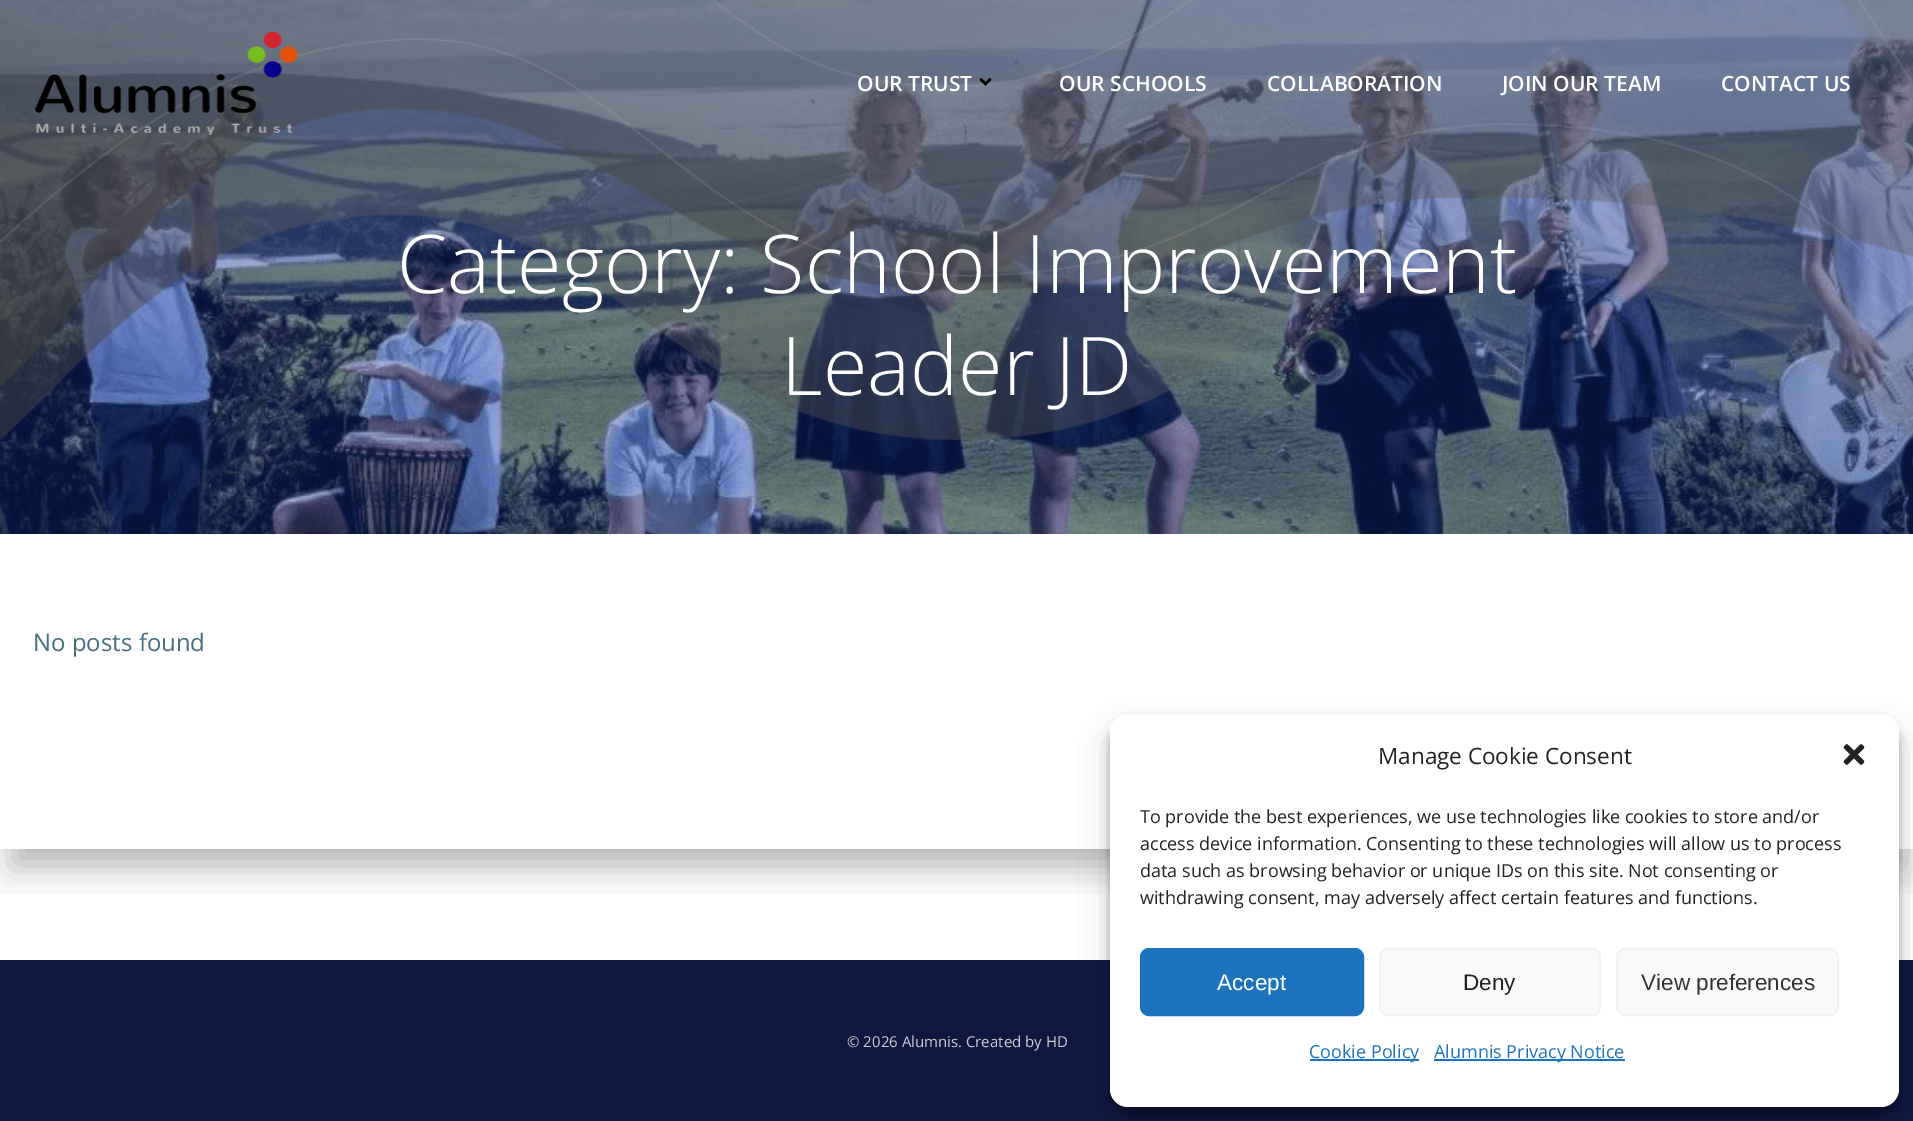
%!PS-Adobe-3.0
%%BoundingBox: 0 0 1913 1121
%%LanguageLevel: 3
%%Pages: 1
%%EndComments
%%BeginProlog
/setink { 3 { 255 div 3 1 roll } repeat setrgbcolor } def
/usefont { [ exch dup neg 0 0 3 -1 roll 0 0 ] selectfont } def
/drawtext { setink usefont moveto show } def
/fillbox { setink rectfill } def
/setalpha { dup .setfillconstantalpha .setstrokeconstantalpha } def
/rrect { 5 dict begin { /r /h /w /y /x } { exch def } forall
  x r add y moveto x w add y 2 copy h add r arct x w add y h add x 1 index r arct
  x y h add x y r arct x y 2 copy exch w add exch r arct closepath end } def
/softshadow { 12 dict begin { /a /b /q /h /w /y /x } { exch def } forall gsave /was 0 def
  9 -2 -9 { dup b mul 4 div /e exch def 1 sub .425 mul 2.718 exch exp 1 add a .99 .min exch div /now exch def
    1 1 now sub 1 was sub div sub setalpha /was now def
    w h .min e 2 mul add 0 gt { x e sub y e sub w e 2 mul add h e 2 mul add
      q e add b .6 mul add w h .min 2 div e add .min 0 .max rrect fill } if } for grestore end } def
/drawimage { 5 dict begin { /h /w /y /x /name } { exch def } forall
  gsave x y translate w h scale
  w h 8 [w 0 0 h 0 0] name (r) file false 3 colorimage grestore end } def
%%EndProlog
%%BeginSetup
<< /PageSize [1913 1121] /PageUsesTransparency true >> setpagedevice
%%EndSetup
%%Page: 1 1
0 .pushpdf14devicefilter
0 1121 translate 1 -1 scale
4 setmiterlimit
0 0 1913 1121 255 255 255 fillbox
(assets/img3.rgb) 0 0 1913 534 drawimage
gsave
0 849 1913 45 rectclip
0 0 0 setink
0 564 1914 315 0 22.5 0.08 softshadow
grestore
gsave
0 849 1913 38 rectclip
49 52 57 setink
15 579 1884 285 0 15 0.3 softshadow
grestore
0.37 setalpha
0 0 1913 534 14 52 158 fillbox
1 setalpha
(assets/img4.rgb) 0 0 1913 440 drawimage
(assets/img1.rgb) 35 31 263 104 drawimage
(OUR TRUST) 857 91 /OpenSans-SemiBold 21 255 255 255 drawtext
(assets/img2.rgb) 979 77 13 9 drawimage
(OUR SCHOOLS) 1059 91 /OpenSans-SemiBold 21 255 255 255 drawtext
(COLLABORATION) 1267 91 /OpenSans-SemiBold 21 255 255 255 drawtext
(JOIN OUR TEAM) 1502 91 /OpenSans-SemiBold 21 255 255 255 drawtext
(CONTACT US) 1721 91 /OpenSans-SemiBold 21 255 255 255 drawtext
(Category: School Improvement) 397 293 /OpenSans-Light 81 255 255 255 drawtext
(Leader JD) 781 395 /OpenSans-Light 81 255 255 255 drawtext
(No posts found) 33 651 /OpenSans-Regular 24 70 112 127 drawtext
0 960 1913 161 15 23 62 fillbox
(© 2026 Alumnis. Created by HD) 847 1047 /OpenSans-Regular 15 205 206 207 drawtext
0 0 0 setink
1110 723 789 393 18 4.5 0.23 softshadow
1110 729 789 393 18 15 0.19 softshadow
255 255 255 setink
1110 714 789 393 18 rrect fill
(Manage Cookie Consent) 1378 764 /OpenSans-Regular 22.5 34 34 34 drawtext
(assets/img5.rgb) 1843 744 22 21 drawimage
(To provide the best experiences, we use technologies like cookies to store and/or) 1140 823 /OpenSans-Regular 18 34 34 34 drawtext
(access device information. Consenting to these technologies will allow us to process) 1140 850 /OpenSans-Regular 18 34 34 34 drawtext
(data such as browsing behavior or unique IDs on this site. Not consenting or) 1140 877 /OpenSans-Regular 18 34 34 34 drawtext
(withdrawing consent, may adversely affect certain features and functions.) 1140 904 /OpenSans-Regular 18 34 34 34 drawtext
30 115 190 setink
1141 949 222 66 8 rrect gsave fill grestore
2 setlinewidth
stroke
(Accept) 1217 990 /LiberationSans-Regular 22.5 255 255 255 drawtext
249 249 249 setink
1380 949 220 66 8 rrect gsave fill grestore
242 242 242 setink
stroke
(Deny) 1463 990 /LiberationSans-Regular 22.5 34 34 34 drawtext
249 249 249 setink
1617 949 221 66 8 rrect gsave fill grestore
242 242 242 setink
stroke
(View preferences) 1641 990 /LiberationSans-Regular 22.5 51 51 51 drawtext
1310 1059 109 2 30 115 190 fillbox
(Cookie Policy) 1309 1058 /OpenSans-Regular 18 30 115 190 drawtext
1434 1059 191 2 30 115 190 fillbox
(Alumnis Privacy Notice) 1434 1058 /OpenSans-Regular 18 30 115 190 drawtext
.poppdf14devicefilter showpage
%%EOF
